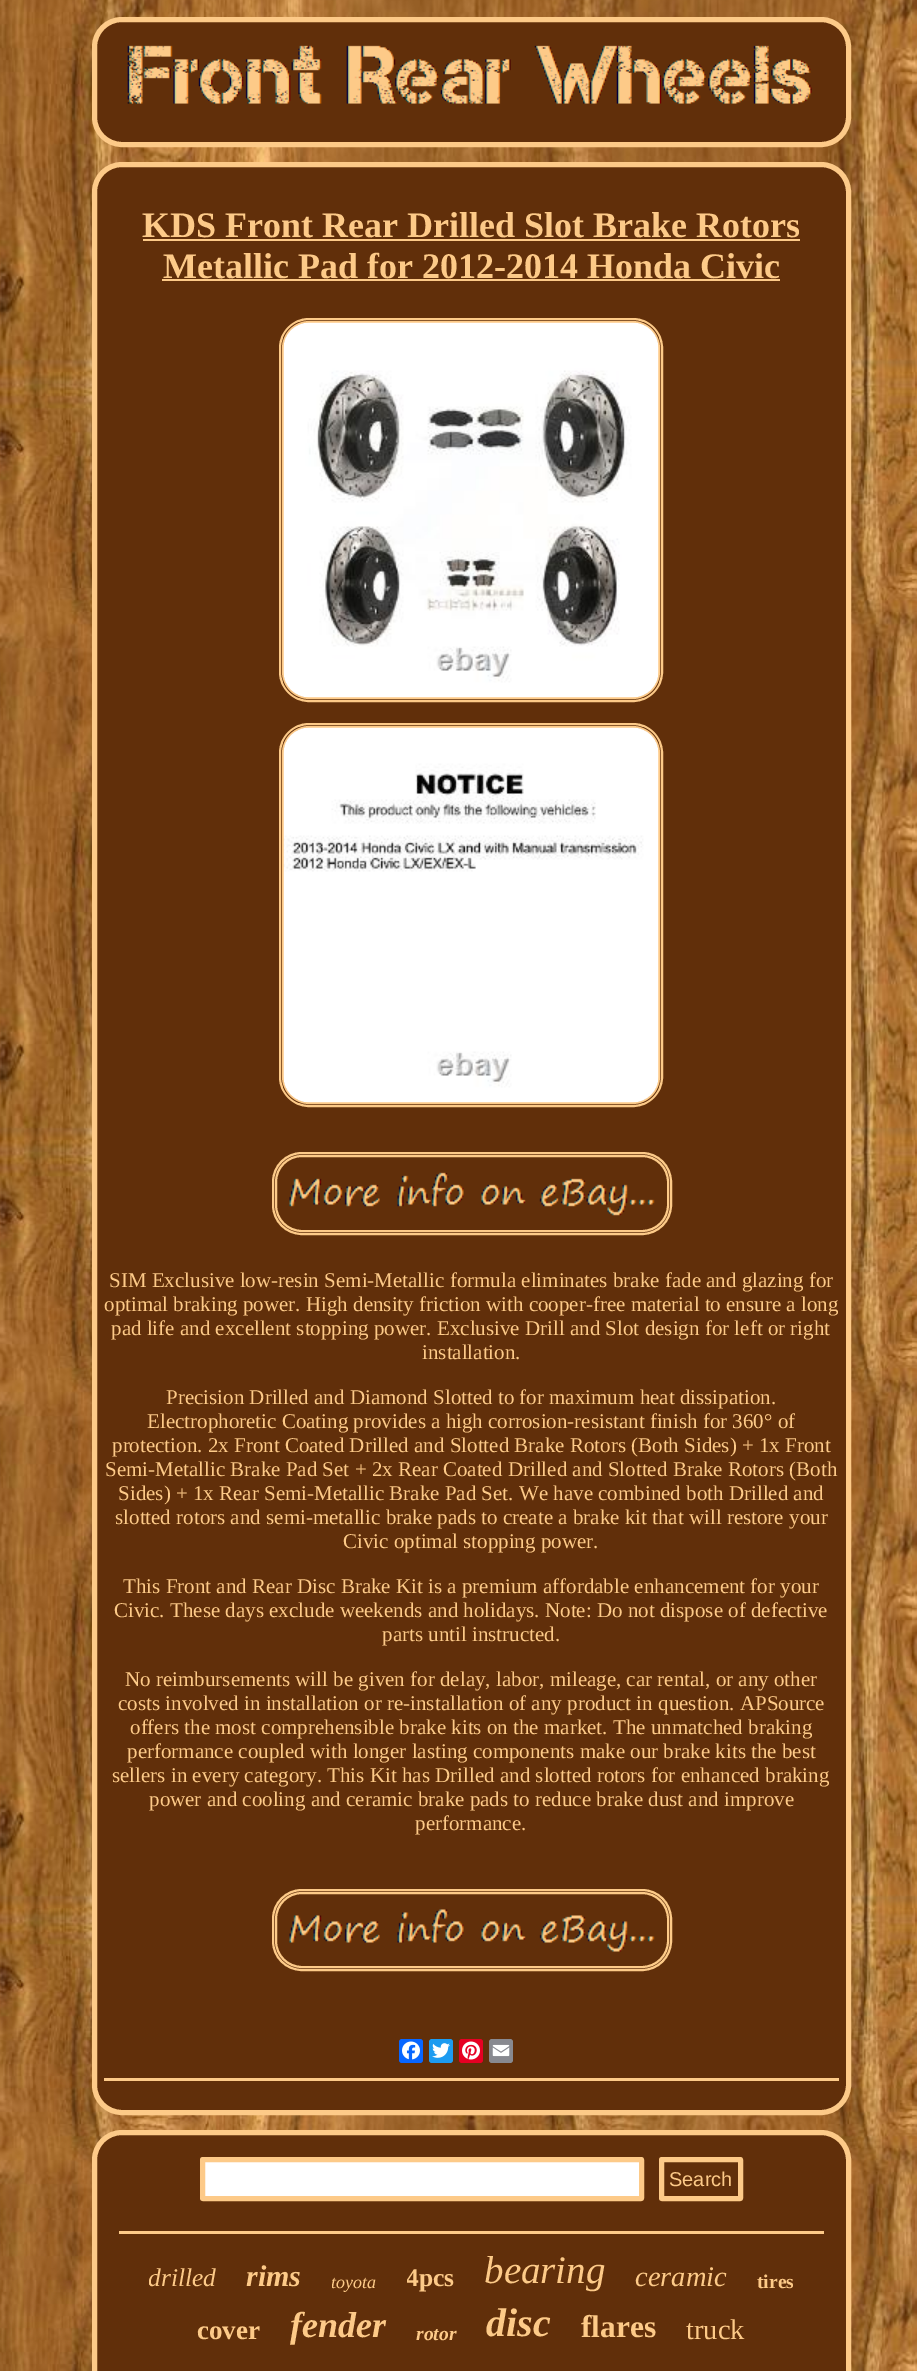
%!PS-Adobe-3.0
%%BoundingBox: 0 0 917 2371
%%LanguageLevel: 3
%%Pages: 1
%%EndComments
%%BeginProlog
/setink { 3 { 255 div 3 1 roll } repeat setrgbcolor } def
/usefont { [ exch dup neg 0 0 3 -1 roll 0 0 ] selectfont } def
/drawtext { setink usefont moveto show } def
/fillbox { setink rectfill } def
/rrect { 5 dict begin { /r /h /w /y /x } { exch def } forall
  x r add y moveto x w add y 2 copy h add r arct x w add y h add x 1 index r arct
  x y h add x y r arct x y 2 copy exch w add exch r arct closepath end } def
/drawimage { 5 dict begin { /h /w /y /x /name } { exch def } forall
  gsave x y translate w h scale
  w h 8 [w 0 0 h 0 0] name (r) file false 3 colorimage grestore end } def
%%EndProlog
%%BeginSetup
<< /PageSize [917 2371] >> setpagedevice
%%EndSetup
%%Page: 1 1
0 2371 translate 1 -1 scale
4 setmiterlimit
0 0 917 2371 255 255 255 fillbox
(assets/img1.rgb) 0 0 917 2371 drawimage
97 47 10 setink
94.5 19.5 754 125 27.5 rrect gsave fill grestore
253 202 136 setink
5 setlinewidth
stroke
(assets/img2.rgb) 127 45 685 59 drawimage
97 47 10 setink
94.5 164.5 754 1948 27.5 rrect gsave fill grestore
253 202 136 setink
stroke
(KDS Front Rear Drilled Slot Brake Rotors) 142 237 /LiberationSerif-Bold 36 253 202 136 drawtext
143 239 657 2 253 202 136 fillbox
(Metallic Pad for 2012-2014 Honda Civic) 163 278 /LiberationSerif-Bold 36 253 202 136 drawtext
162 279 618 2 253 202 136 fillbox
2 setlinewidth
280 319 382 382 29 rrect stroke
283 322 376 376 26 rrect stroke
(assets/img3.rgb) 283 322 376 376 drawimage
280 724 382 382 29 rrect stroke
283 727 376 376 26 rrect stroke
(assets/img4.rgb) 283 727 376 376 drawimage
273 1153 398 81 29 rrect stroke
276 1156 392 75 26 rrect stroke
(assets/img5.rgb) 289 1172 366 44 drawimage
(SIM Exclusive low-resin Semi-Metallic formula eliminates brake fade and glazing for) 109 1287 /LiberationSerif-Regular 21 253 202 136 drawtext
(optimal braking power. High density friction with cooper-free material to ensure a long) 104 1311 /LiberationSerif-Regular 21 253 202 136 drawtext
(pad life and excellent stopping power. Exclusive Drill and Slot design for left or right) 111 1335 /LiberationSerif-Regular 21 253 202 136 drawtext
(installation.) 422 1359 /LiberationSerif-Regular 21 253 202 136 drawtext
(Precision Drilled and Diamond Slotted to for maximum heat dissipation.) 166 1404 /LiberationSerif-Regular 21 253 202 136 drawtext
(Electrophoretic Coating provides a high corrosion-resistant finish for 360° of) 147 1428 /LiberationSerif-Regular 21 253 202 136 drawtext
(protection. 2x Front Coated Drilled and Slotted Brake Rotors \(Both Sides\) + 1x Front) 112 1452 /LiberationSerif-Regular 21 253 202 136 drawtext
(Semi-Metallic Brake Pad Set + 2x Rear Coated Drilled and Slotted Brake Rotors \(Both) 105 1476 /LiberationSerif-Regular 21 253 202 136 drawtext
(Sides\) + 1x Rear Semi-Metallic Brake Pad Set. We have combined both Drilled and) 118 1500 /LiberationSerif-Regular 21 253 202 136 drawtext
(slotted rotors and semi-metallic brake pads to create a brake kit that will restore your) 115 1524 /LiberationSerif-Regular 21 253 202 136 drawtext
(Civic optimal stopping power.) 343 1548 /LiberationSerif-Regular 21 253 202 136 drawtext
(This Front and Rear Disc Brake Kit is a premium affordable enhancement for your) 123 1593 /LiberationSerif-Regular 21 253 202 136 drawtext
(Civic. These days exclude weekends and holidays. Note: Do not dispose of defective) 114 1617 /LiberationSerif-Regular 21 253 202 136 drawtext
(parts until instructed.) 382 1641 /LiberationSerif-Regular 21 253 202 136 drawtext
(No reimbursements will be given for delay, labor, mileage, car rental, or any other) 125 1686 /LiberationSerif-Regular 21 253 202 136 drawtext
(costs involved in installation or re-installation of any product in question. APSource) 118 1710 /LiberationSerif-Regular 21 253 202 136 drawtext
(offers the most comprehensible brake kits on the market. The unmatched braking) 130 1734 /LiberationSerif-Regular 21 253 202 136 drawtext
(performance coupled with longer lasting components make our brake kits the best) 127 1758 /LiberationSerif-Regular 21 253 202 136 drawtext
(sellers in every category. This Kit has Drilled and slotted rotors for enhanced braking) 112 1782 /LiberationSerif-Regular 21 253 202 136 drawtext
(power and cooling and ceramic brake pads to reduce brake dust and improve) 149 1806 /LiberationSerif-Regular 21 253 202 136 drawtext
(performance.) 415 1830 /LiberationSerif-Regular 21 253 202 136 drawtext
273 1890 398 80 29 rrect stroke
276 1893 392 74 26 rrect stroke
(assets/img6.rgb) 289 1909 366 43 drawimage
8 102 255 setink
399 2039 24 24 3 rrect fill
(assets/img7.rgb) 402 2041 18 19 drawimage
29 155 240 setink
429 2039 24 24 3 rrect fill
(assets/img8.rgb) 432 2043 18 15 drawimage
230 0 35 setink
459 2039 24 24 3 rrect fill
(assets/img9.rgb) 462 2041 18 19 drawimage
136 137 144 setink
489 2039 24 24 3 rrect fill
(assets/img10.rgb) 492 2044 18 13 drawimage
104 2078 735 3 253 202 136 fillbox
97 47 10 setink
94.5 2132.5 754 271 27.5 rrect gsave fill grestore
253 202 136 setink
5 setlinewidth
stroke
255 255 255 setink
202.5 2159.5 439 39 0.5 rrect gsave fill grestore
253 202 136 setink
stroke
661.5 2159.5 79 39 0.5 rrect stroke
(Search) 669 2186 /LiberationSans-Regular 20 253 202 136 drawtext
119 2231 705 3 253 202 136 fillbox
gsave
149 2264 67 30 rectclip
(drilled) 148 2286 /LiberationSerif-Italic 25.5 253 202 136 drawtext
grestore
(rims) 246 2286 /LiberationSerif-BoldItalic 30 253 202 136 drawtext
gsave
332 2271 45 23 rectclip
(toyota) 331 2288 /LiberationSerif-Italic 18 253 202 136 drawtext
grestore
gsave
407 2264 48 30 rectclip
(4pcs) 406 2286 /LiberationSerif-Bold 25.5 253 202 136 drawtext
grestore
(bearing) 484 2283 /LiberationSerif-Italic 39 253 202 136 drawtext
(ceramic) 635 2286 /LiberationSerif-Italic 28.5 253 202 136 drawtext
(tires) 757 2288 /LiberationSerif-Bold 19.5 253 202 136 drawtext
(cover) 197 2339 /LiberationSerif-Bold 27 253 202 136 drawtext
(fender) 290 2337 /LiberationSerif-BoldItalic 36 253 202 136 drawtext
(rotor) 416 2340 /LiberationSerif-BoldItalic 19.5 253 202 136 drawtext
(disc) 486 2336 /LiberationSerif-BoldItalic 40 253 202 136 drawtext
(flares) 581 2337 /LiberationSerif-Bold 31.5 253 202 136 drawtext
(truck) 686 2339 /LiberationSerif-Regular 28.5 253 202 136 drawtext
showpage
%%EOF
